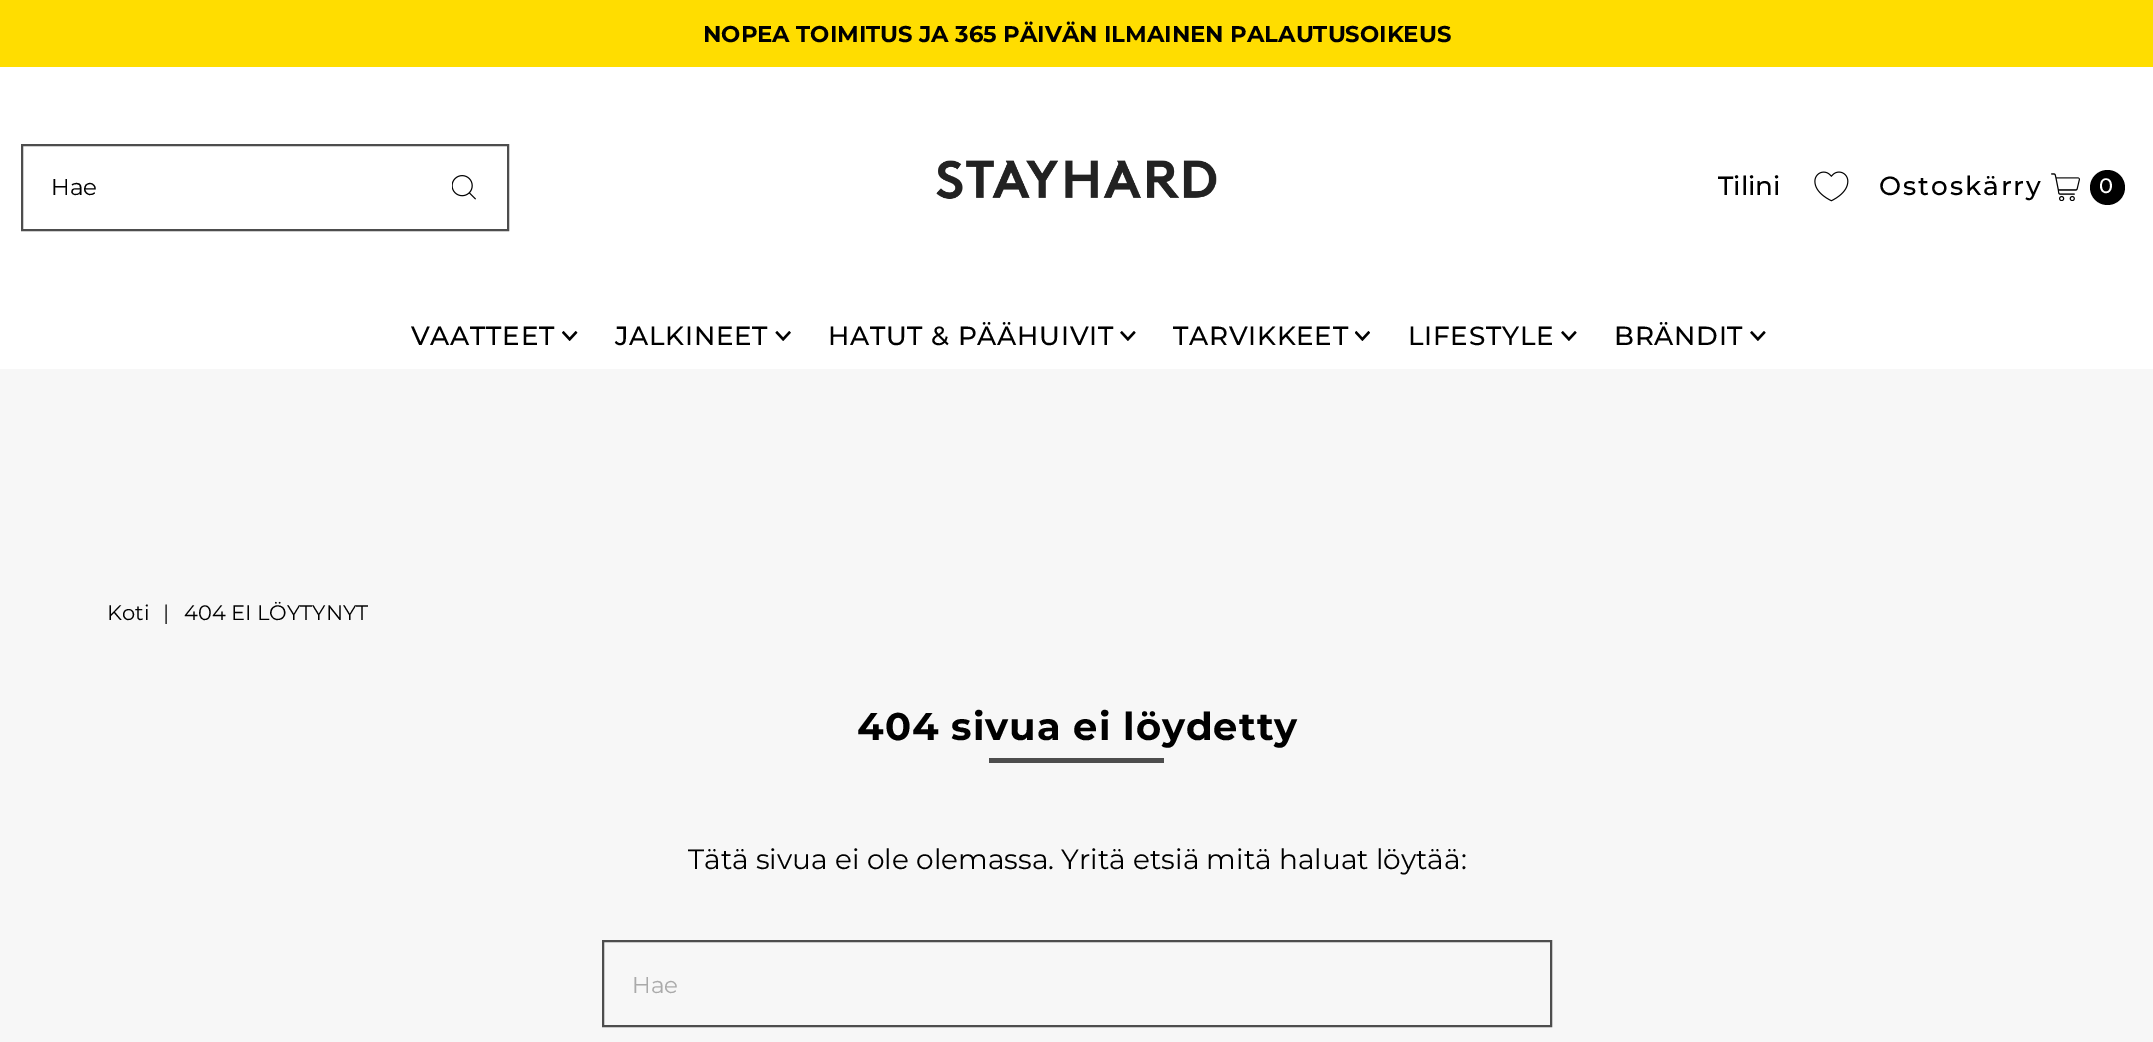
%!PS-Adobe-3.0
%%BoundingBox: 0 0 2153 1042
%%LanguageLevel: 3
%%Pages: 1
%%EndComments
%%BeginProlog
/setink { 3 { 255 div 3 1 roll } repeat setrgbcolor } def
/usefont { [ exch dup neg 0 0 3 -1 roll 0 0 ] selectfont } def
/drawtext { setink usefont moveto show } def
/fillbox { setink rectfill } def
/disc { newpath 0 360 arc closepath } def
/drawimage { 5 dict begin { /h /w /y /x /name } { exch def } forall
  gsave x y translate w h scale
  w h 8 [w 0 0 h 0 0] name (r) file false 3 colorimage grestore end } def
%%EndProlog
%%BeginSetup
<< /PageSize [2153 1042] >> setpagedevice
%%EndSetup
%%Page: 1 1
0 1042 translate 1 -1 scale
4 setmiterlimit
0 0 2153 1042 247 247 247 fillbox
0 0 2153 67 255 221 0 fillbox
(NOPEA TOIMITUS JA 365 PÄIVÄN ILMAINEN PALAUTUSOIKEUS) 703 42 /Montserrat-Bold 22.75 0 0 0 drawtext
0 67 2153 302 255 255 255 fillbox
77 77 77 setink
2 setlinewidth
22 145 486 85 rectstroke
(Hae) 51 195 /Montserrat-Regular 23 0 0 0 drawtext
(assets/img1.rgb) 452 175 24 25 drawimage
(assets/img2.rgb) 936 160 281 39 drawimage
(Tilini) 1718 195 /Montserrat-Medium 26.25 0 0 0 drawtext
(assets/img3.rgb) 1814 171 35 31 drawimage
1879 195 moveto 2 0 (Ostoskärry) ashow
(assets/img4.rgb) 2051 173 29 28 drawimage
2107.5 187.5 17.5 disc fill
(0) 2099 193 /Montserrat-Medium 21 255 255 255 drawtext
/Montserrat-Medium 26.25 usefont
0 0 0 setink
411 345 moveto 0.7 0 (VAATTEET) ashow
(assets/img5.rgb) 562 331 16 10 drawimage
615 345 moveto 0.7 0 (JALKINEET) ashow
(assets/img6.rgb) 775 331 16 10 drawimage
828 345 moveto 0.7 0 (HATUT & PÄÄHUIVIT) ashow
(assets/img7.rgb) 1120 331 16 10 drawimage
1173 345 moveto 0.7 0 (TARVIKKEET) ashow
(assets/img8.rgb) 1355 331 15 10 drawimage
1408 345 moveto 0.7 0 (LIFESTYLE) ashow
(assets/img7.rgb) 1561 331 16 10 drawimage
1614 345 moveto 0.7 0 (BRÄNDIT) ashow
(assets/img7.rgb) 1750 331 16 10 drawimage
(Koti) 107 620 /Montserrat-Regular 21 0 0 0 drawtext
(|) 163 620 /Montserrat-Regular 21 0 0 0 drawtext
(404 EI LÖYTYNYT) 184 620 /Montserrat-Regular 21 0 0 0 drawtext
/Montserrat-Bold 38.5 usefont
857 740 moveto 1 0 (404 sivua ei löydetty) ashow
989 758 175 5 77 77 77 fillbox
(Tätä sivua ei ole olemassa. Yritä etsiä mitä haluat löytää:) 688 869 /Montserrat-Regular 28 0 0 0 drawtext
77 77 77 setink
603 941 948 85 rectstroke
(Hae) 632 993 /Montserrat-Regular 23 170 170 170 drawtext
showpage
%%EOF
